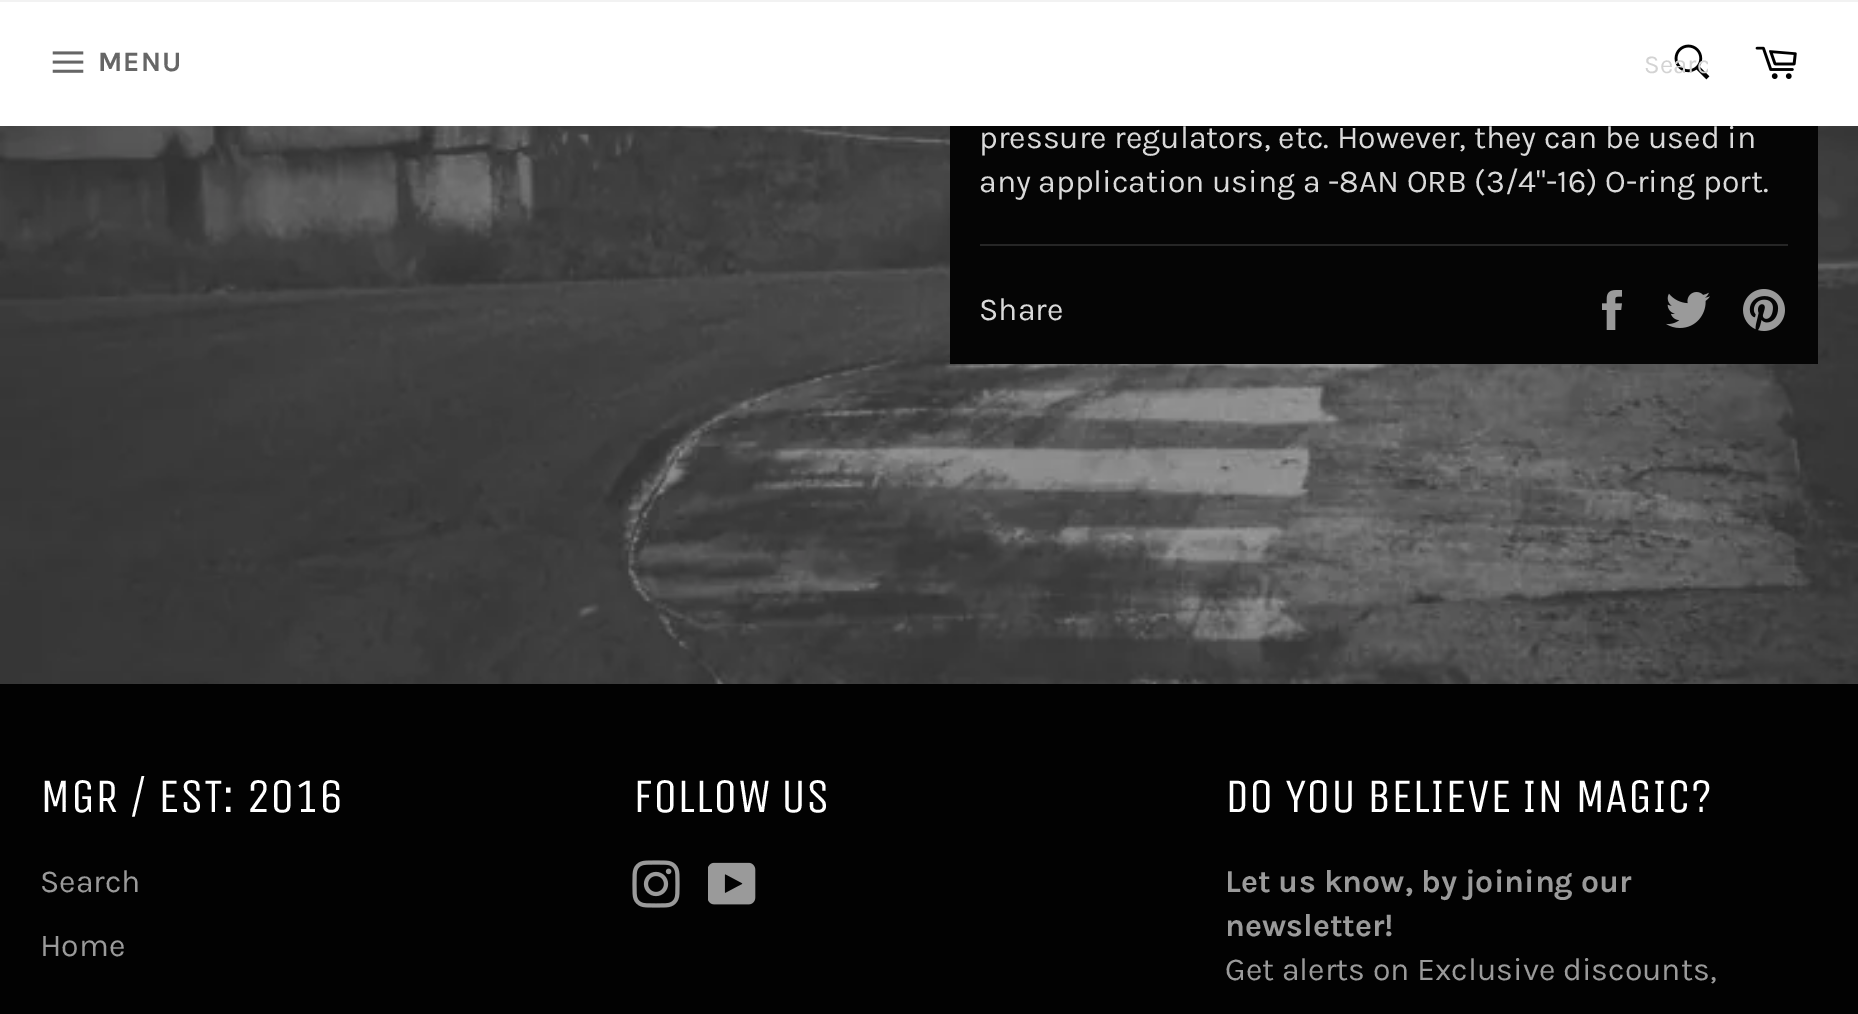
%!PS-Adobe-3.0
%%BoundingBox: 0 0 1858 1014
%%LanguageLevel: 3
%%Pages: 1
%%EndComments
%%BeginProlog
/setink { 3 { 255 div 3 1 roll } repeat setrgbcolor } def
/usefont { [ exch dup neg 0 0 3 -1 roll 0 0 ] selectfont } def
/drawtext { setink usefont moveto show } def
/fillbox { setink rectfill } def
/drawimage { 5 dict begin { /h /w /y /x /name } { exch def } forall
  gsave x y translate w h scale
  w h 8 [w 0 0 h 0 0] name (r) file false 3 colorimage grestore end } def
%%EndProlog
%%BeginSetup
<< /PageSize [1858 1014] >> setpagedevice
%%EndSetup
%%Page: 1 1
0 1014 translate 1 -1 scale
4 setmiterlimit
0 0 1858 1014 255 255 255 fillbox
0 0 1858 2 242 242 242 fillbox
(assets/img1.rgb) 52 51 32 22 drawimage
/Karla-Bold 28 usefont
102 102 102 setink
98 71 moveto 1 0 (MENU) ashow
(assets/img2.rgb) 1674 44 36 36 drawimage
gsave
1644 50 64 30 rectclip
(Searc) 1644 73 /Karla-Regular 26 211 211 211 drawtext
grestore
(assets/img3.rgb) 1755 46 42 33 drawimage
(assets/img4.rgb) 0 126 1858 558 drawimage
950 126 868 238 5 5 5 fillbox
(pressure regulators, etc. However, they can be used in) 979 148 /Karla-Regular 32 218 218 218 drawtext
(any application using a -8AN ORB \(3/4"-16\) O-ring port.) 979 192 /Karla-Regular 32 218 218 218 drawtext
980 244 808 2 38 38 38 fillbox
(Share) 979 320 /Karla-Regular 32 218 218 218 drawtext
(assets/img5.rgb) 1602 290 20 40 drawimage
(assets/img6.rgb) 1666 292 44 36 drawimage
(assets/img7.rgb) 1743 289 42 42 drawimage
0 684 1858 330 2 2 2 fillbox
(MGR / EST: 2016) 40 812 /UnicaOne-Regular 48 255 255 255 drawtext
(Search) 40 892 /Karla-Regular 32 154 154 154 drawtext
(Home) 40 956 /Karla-Regular 32 154 154 154 drawtext
(FOLLOW US) 633 812 /UnicaOne-Regular 48 255 255 255 drawtext
(assets/img8.rgb) 632 860 48 48 drawimage
(assets/img9.rgb) 708 862 48 43 drawimage
(DO YOU BELIEVE IN MAGIC?) 1225 812 /UnicaOne-Regular 48 255 255 255 drawtext
(Let us know, by joining our) 1225 892 /Karla-Bold 32 154 154 154 drawtext
(newsletter!) 1225 936 /Karla-Bold 32 154 154 154 drawtext
(Get alerts on Exclusive discounts,) 1225 980 /Karla-Regular 32 154 154 154 drawtext
showpage
%%EOF
